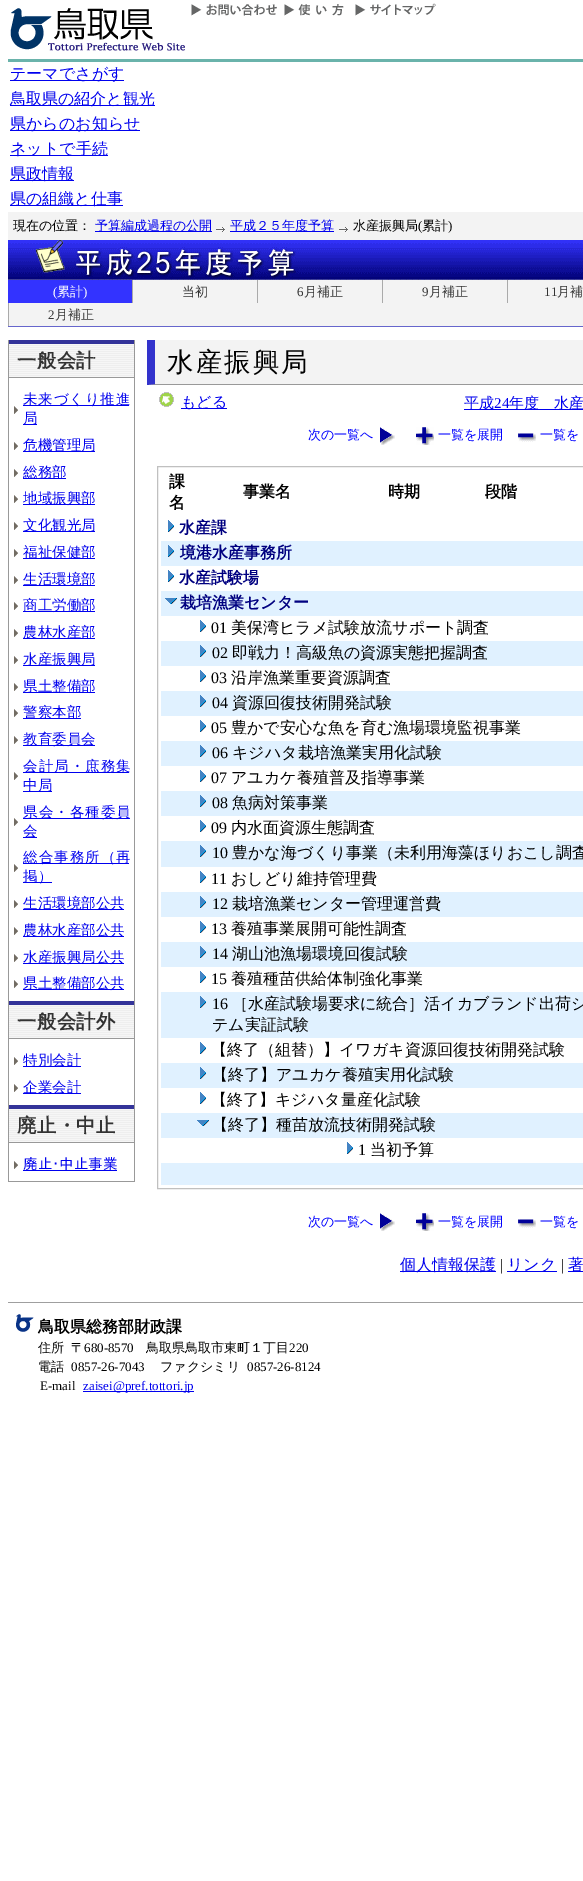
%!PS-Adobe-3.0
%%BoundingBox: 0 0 583 1881
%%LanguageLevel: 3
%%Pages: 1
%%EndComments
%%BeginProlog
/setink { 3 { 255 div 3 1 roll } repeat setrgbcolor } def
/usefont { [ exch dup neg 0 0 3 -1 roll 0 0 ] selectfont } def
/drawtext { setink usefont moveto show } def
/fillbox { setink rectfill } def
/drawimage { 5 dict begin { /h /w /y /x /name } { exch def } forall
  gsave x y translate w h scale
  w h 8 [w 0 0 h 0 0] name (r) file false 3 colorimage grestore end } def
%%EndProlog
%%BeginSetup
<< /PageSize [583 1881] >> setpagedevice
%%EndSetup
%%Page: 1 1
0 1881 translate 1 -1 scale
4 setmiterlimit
0 0 583 1881 255 255 255 fillbox
(assets/img1.rgb) 10 8 175 43 drawimage
(assets/img2.rgb) 191 4 86 12 drawimage
(assets/img3.rgb) 284 4 60 12 drawimage
(assets/img4.rgb) 355 3 81 13 drawimage
8 59 575 3 106 179 171 fillbox
10 80 114 1 0 0 238 fillbox
(テーマでさがす) 10 79 /WenQuanYiZenHei-Medium 16 0 0 238 drawtext
10 105 145 1 0 0 238 fillbox
(鳥取県の紹介と観光) 10 104 /WenQuanYiZenHei-Medium 16 0 0 238 drawtext
10 130 130 1 0 0 238 fillbox
(県からのお知らせ) 10 129 /WenQuanYiZenHei-Medium 16 0 0 238 drawtext
10 155 98 1 0 0 238 fillbox
(ネットで手続) 10 154 /WenQuanYiZenHei-Medium 16 0 0 238 drawtext
10 180 64 1 0 0 238 fillbox
(県政情報) 10 179 /WenQuanYiZenHei-Medium 16 0 0 238 drawtext
10 205 113 1 0 0 238 fillbox
(県の組織と仕事) 10 204 /WenQuanYiZenHei-Medium 16 0 0 238 drawtext
8 212 575 28 243 243 243 fillbox
(現在の位置：) 13 230 /WenQuanYiZenHei-Medium 13 0 0 0 drawtext
95 231 117 1 0 0 238 fillbox
(予算編成過程の公開) 95 230 /WenQuanYiZenHei-Medium 13 0 0 238 drawtext
(assets/img5.rgb) 216 227 9 5 drawimage
230 231 104 1 0 0 238 fillbox
(平成２５年度予算) 230 230 /WenQuanYiZenHei-Medium 13 0 0 238 drawtext
(assets/img5.rgb) 339 227 9 5 drawimage
(水産振興局) 353 230 /WenQuanYiZenHei-Medium 13 0 0 0 drawtext
(\() 418 230 /LiberationSerif-Regular 13 0 0 0 drawtext
(累計) 422 230 /WenQuanYiZenHei-Medium 13 0 0 0 drawtext
(\)) 448 230 /LiberationSerif-Regular 13 0 0 0 drawtext
(assets/img6.rgb) 8 240 575 40 drawimage
9 280 574 46 243 243 243 fillbox
8 326 575 1 102 102 204 fillbox
8 280 124 23 51 51 255 fillbox
(\() 53 296 /LiberationSerif-Regular 13 255 255 255 drawtext
(累計) 57 296 /WenQuanYiZenHei-Medium 13 255 255 255 drawtext
(\)) 83 296 /LiberationSerif-Regular 13 255 255 255 drawtext
132 280 1 23 170 170 170 fillbox
(当初) 182 296 /WenQuanYiZenHei-Medium 13 51 51 51 drawtext
257 280 1 23 170 170 170 fillbox
(6) 297 296 /LiberationSerif-Regular 13 51 51 51 drawtext
(月補正) 304 296 /WenQuanYiZenHei-Medium 13 51 51 51 drawtext
382 280 1 23 170 170 170 fillbox
(9) 422 296 /LiberationSerif-Regular 13 51 51 51 drawtext
(月補正) 429 296 /WenQuanYiZenHei-Medium 13 51 51 51 drawtext
507 280 1 23 170 170 170 fillbox
(11) 544 296 /LiberationSerif-Regular 13 51 51 51 drawtext
(月補) 557 296 /WenQuanYiZenHei-Medium 13 51 51 51 drawtext
8 303 1 23 170 170 170 fillbox
(2) 48 319 /LiberationSerif-Regular 13 51 51 51 drawtext
(月補正) 55 319 /WenQuanYiZenHei-Medium 13 51 51 51 drawtext
134 340 1 842 153 153 153 fillbox
8 1181 127 1 153 153 153 fillbox
8 340 1 842 153 153 153 fillbox
(assets/img7.rgb) 9 344 125 33 drawimage
9 340 125 4 51 51 153 fillbox
9 377 125 1 153 153 153 fillbox
/WenQuanYiZenHei-Bold 19.25 usefont
51 51 51 setink
17 367 moveto 0.5 0 (一般会計) ashow
(assets/img8.rgb) 14 406 4 8 drawimage
23 405 106 1 0 0 238 fillbox
/WenQuanYiZenHei-Medium 14.5 usefont
23 404 moveto 0.75 0 (未来づくり推進) ashow
23 424 14 1 0 0 238 fillbox
(局) 23 423 /WenQuanYiZenHei-Medium 14.5 0 0 238 drawtext
(assets/img8.rgb) 14 442 4 8 drawimage
23 451 72 1 0 0 238 fillbox
(危機管理局) 23 450 /WenQuanYiZenHei-Medium 14.5 0 0 238 drawtext
(assets/img8.rgb) 14 469 4 8 drawimage
23 478 43 1 0 0 238 fillbox
(総務部) 23 477 /WenQuanYiZenHei-Medium 14.5 0 0 238 drawtext
(assets/img8.rgb) 14 495 4 8 drawimage
23 504 72 1 0 0 238 fillbox
(地域振興部) 23 503 /WenQuanYiZenHei-Medium 14.5 0 0 238 drawtext
(assets/img8.rgb) 14 522 4 8 drawimage
23 531 72 1 0 0 238 fillbox
(文化観光局) 23 530 /WenQuanYiZenHei-Medium 14.5 0 0 238 drawtext
(assets/img8.rgb) 14 549 4 8 drawimage
23 558 72 1 0 0 238 fillbox
(福祉保健部) 23 557 /WenQuanYiZenHei-Medium 14.5 0 0 238 drawtext
(assets/img8.rgb) 14 576 4 8 drawimage
23 585 72 1 0 0 238 fillbox
(生活環境部) 23 584 /WenQuanYiZenHei-Medium 14.5 0 0 238 drawtext
(assets/img8.rgb) 14 602 4 8 drawimage
23 611 72 1 0 0 238 fillbox
(商工労働部) 23 610 /WenQuanYiZenHei-Medium 14.5 0 0 238 drawtext
(assets/img8.rgb) 14 629 4 8 drawimage
23 638 72 1 0 0 238 fillbox
(農林水産部) 23 637 /WenQuanYiZenHei-Medium 14.5 0 0 238 drawtext
(assets/img8.rgb) 14 656 4 8 drawimage
23 665 72 1 0 0 238 fillbox
(水産振興局) 23 664 /WenQuanYiZenHei-Medium 14.5 0 0 238 drawtext
(assets/img8.rgb) 14 683 4 8 drawimage
23 692 72 1 0 0 238 fillbox
(県土整備部) 23 691 /WenQuanYiZenHei-Medium 14.5 0 0 238 drawtext
(assets/img8.rgb) 14 709 4 8 drawimage
23 718 58 1 0 0 238 fillbox
(警察本部) 23 717 /WenQuanYiZenHei-Medium 14.5 0 0 238 drawtext
(assets/img8.rgb) 14 736 4 8 drawimage
23 745 72 1 0 0 238 fillbox
(教育委員会) 23 744 /WenQuanYiZenHei-Medium 14.5 0 0 238 drawtext
(assets/img8.rgb) 14 772 4 8 drawimage
23 772 106 1 0 0 238 fillbox
23 771 moveto 1 0 (会計局・庶務集) ashow
23 791 29 1 0 0 238 fillbox
(中局) 23 790 /WenQuanYiZenHei-Medium 14.5 0 0 238 drawtext
(assets/img8.rgb) 14 818 4 8 drawimage
23 818 106 1 0 0 238 fillbox
23 817 moveto 1 0 (県会・各種委員) ashow
23 837 14 1 0 0 238 fillbox
(会) 23 836 /WenQuanYiZenHei-Medium 14.5 0 0 238 drawtext
(assets/img8.rgb) 14 864 4 8 drawimage
23 863 106 1 0 0 238 fillbox
23 862 moveto 1 0 (総合事務所（再) ashow
23 882 29 1 0 0 238 fillbox
(掲）) 23 881 /WenQuanYiZenHei-Medium 14.5 0 0 238 drawtext
(assets/img8.rgb) 14 900 4 8 drawimage
23 909 101 1 0 0 238 fillbox
(生活環境部公共) 23 908 /WenQuanYiZenHei-Medium 14.5 0 0 238 drawtext
(assets/img8.rgb) 14 927 4 8 drawimage
23 936 101 1 0 0 238 fillbox
(農林水産部公共) 23 935 /WenQuanYiZenHei-Medium 14.5 0 0 238 drawtext
(assets/img8.rgb) 14 954 4 8 drawimage
23 963 101 1 0 0 238 fillbox
(水産振興局公共) 23 962 /WenQuanYiZenHei-Medium 14.5 0 0 238 drawtext
(assets/img8.rgb) 14 980 4 8 drawimage
23 989 101 1 0 0 238 fillbox
(県土整備部公共) 23 988 /WenQuanYiZenHei-Medium 14.5 0 0 238 drawtext
(assets/img7.rgb) 9 1005 125 33 drawimage
9 1001 125 4 51 51 153 fillbox
9 1038 125 1 153 153 153 fillbox
/WenQuanYiZenHei-Bold 19.25 usefont
51 51 51 setink
17 1028 moveto 0.5 0 (一般会計外) ashow
(assets/img8.rgb) 14 1057 4 8 drawimage
23 1066 58 1 0 0 238 fillbox
(特別会計) 23 1065 /WenQuanYiZenHei-Medium 14.5 0 0 238 drawtext
(assets/img8.rgb) 14 1084 4 8 drawimage
23 1093 58 1 0 0 238 fillbox
(企業会計) 23 1092 /WenQuanYiZenHei-Medium 14.5 0 0 238 drawtext
(assets/img7.rgb) 9 1109 125 33 drawimage
9 1105 125 4 51 51 153 fillbox
9 1142 125 1 153 153 153 fillbox
/WenQuanYiZenHei-Bold 19.25 usefont
51 51 51 setink
17 1132 moveto 0.5 0 (廃止・中止) ashow
(assets/img8.rgb) 14 1161 4 8 drawimage
(廃止･中止事業) 23 1169 /IPAGothic-Regular 14.5 0 0 238 drawtext
23 1170 94 1 0 0 238 fillbox
147 340 436 45 243 243 243 fillbox
153 153 153 setink
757 385 moveto 147 385 lineto 155 384 lineto 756 384 lineto closepath fill
51 51 204 setink
147 385 moveto 147 340 lineto 155 340 lineto 155 384 lineto closepath fill
/WenQuanYiZenHei-Medium 26.5 usefont
0 0 0 setink
167 371 moveto 2 0 (水産振興局) ashow
(assets/img9.rgb) 159 392 15 15 drawimage
181 408 46 1 0 0 238 fillbox
(もどる) 181 407 /WenQuanYiZenHei-Medium 15 0 0 238 drawtext
464 409 119 1 0 0 238 fillbox
(平成) 464 408 /WenQuanYiZenHei-Medium 15 0 0 238 drawtext
(24) 494 408 /LiberationSerif-Regular 15 0 0 238 drawtext
(年度　水産) 509 408 /WenQuanYiZenHei-Medium 15 0 0 238 drawtext
(次の一覧へ) 308 439 /WenQuanYiZenHei-Medium 13 0 0 255 drawtext
(assets/img10.rgb) 380 427 15 18 drawimage
(assets/img11.rgb) 416 427 18 18 drawimage
(一覧を展開) 438 439 /WenQuanYiZenHei-Medium 13 0 0 255 drawtext
(assets/img12.rgb) 518 433 18 9 drawimage
(一覧を) 540 439 /WenQuanYiZenHei-Medium 13 0 0 255 drawtext
192 192 192 setink
157.5 466.5 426 722 rectstroke
(課) 169 487 /WenQuanYiZenHei-Bold 16 0 0 0 drawtext
(名) 169 508 /WenQuanYiZenHei-Bold 16 0 0 0 drawtext
(事業名) 243 497 /WenQuanYiZenHei-Bold 16 0 0 0 drawtext
(時期) 388 497 /WenQuanYiZenHei-Bold 16 0 0 0 drawtext
(段階) 485 497 /WenQuanYiZenHei-Bold 16 0 0 0 drawtext
(assets/img13.rgb) 168 520 6 12 drawimage
(水産課) 179 533 /WenQuanYiZenHei-Bold 16 0 0 128 drawtext
161 541 422 25 224 241 255 fillbox
(assets/img14.rgb) 168 545 6 12 drawimage
(境港水産事務所) 180 558 /WenQuanYiZenHei-Bold 16 0 0 128 drawtext
(assets/img13.rgb) 168 570 6 12 drawimage
(水産試験場) 179 583 /WenQuanYiZenHei-Bold 16 0 0 128 drawtext
161 591 422 25 224 241 255 fillbox
(assets/img15.rgb) 165 598 12 6 drawimage
(栽培漁業センター) 180 608 /WenQuanYiZenHei-Bold 16 0 0 128 drawtext
(assets/img13.rgb) 200 620 6 12 drawimage
(01) 211 633 /LiberationSerif-Regular 16 0 0 0 drawtext
(美保湾ヒラメ試験放流サポート調査) 231 633 /WenQuanYiZenHei-Medium 16 0 0 0 drawtext
161 641 422 25 224 241 255 fillbox
(assets/img14.rgb) 200 645 6 12 drawimage
(02) 212 658 /LiberationSerif-Regular 16 0 0 0 drawtext
(即戦力！高級魚の資源実態把握調査) 232 658 /WenQuanYiZenHei-Medium 16 0 0 0 drawtext
(assets/img13.rgb) 200 670 6 12 drawimage
(03) 211 683 /LiberationSerif-Regular 16 0 0 0 drawtext
(沿岸漁業重要資源調査) 231 683 /WenQuanYiZenHei-Medium 16 0 0 0 drawtext
161 691 422 25 224 241 255 fillbox
(assets/img14.rgb) 200 695 6 12 drawimage
(04) 212 708 /LiberationSerif-Regular 16 0 0 0 drawtext
(資源回復技術開発試験) 232 708 /WenQuanYiZenHei-Medium 16 0 0 0 drawtext
(assets/img13.rgb) 200 720 6 12 drawimage
(05) 211 733 /LiberationSerif-Regular 16 0 0 0 drawtext
(豊かで安心な魚を育む漁場環境監視事業) 231 733 /WenQuanYiZenHei-Medium 16 0 0 0 drawtext
161 741 422 25 224 241 255 fillbox
(assets/img14.rgb) 200 745 6 12 drawimage
(06) 212 758 /LiberationSerif-Regular 16 0 0 0 drawtext
(キジハタ栽培漁業実用化試験) 232 758 /WenQuanYiZenHei-Medium 16 0 0 0 drawtext
(assets/img13.rgb) 200 770 6 12 drawimage
(07) 211 783 /LiberationSerif-Regular 16 0 0 0 drawtext
(アユカケ養殖普及指導事業) 231 783 /WenQuanYiZenHei-Medium 16 0 0 0 drawtext
161 791 422 25 224 241 255 fillbox
(assets/img14.rgb) 200 795 6 12 drawimage
(08) 212 808 /LiberationSerif-Regular 16 0 0 0 drawtext
(魚病対策事業) 232 808 /WenQuanYiZenHei-Medium 16 0 0 0 drawtext
(assets/img13.rgb) 200 820 6 12 drawimage
(09) 211 833 /LiberationSerif-Regular 16 0 0 0 drawtext
(内水面資源生態調査) 231 833 /WenQuanYiZenHei-Medium 16 0 0 0 drawtext
161 841 422 26 224 241 255 fillbox
(assets/img14.rgb) 200 845 6 12 drawimage
(10) 212 858 /LiberationSerif-Regular 16 0 0 0 drawtext
(豊かな海づくり事業（未利用海藻ほりおこし調査) 232 858 /WenQuanYiZenHei-Medium 16 0 0 0 drawtext
(assets/img13.rgb) 200 871 6 12 drawimage
(11) 211 884 /LiberationSerif-Regular 16 0 0 0 drawtext
(おしどり維持管理費) 231 884 /WenQuanYiZenHei-Medium 16 0 0 0 drawtext
161 892 422 25 224 241 255 fillbox
(assets/img14.rgb) 200 896 6 12 drawimage
(12) 212 909 /LiberationSerif-Regular 16 0 0 0 drawtext
(栽培漁業センター管理運営費) 232 909 /WenQuanYiZenHei-Medium 16 0 0 0 drawtext
(assets/img13.rgb) 200 921 6 12 drawimage
(13) 211 934 /LiberationSerif-Regular 16 0 0 0 drawtext
(養殖事業展開可能性調査) 231 934 /WenQuanYiZenHei-Medium 16 0 0 0 drawtext
161 942 422 25 224 241 255 fillbox
(assets/img14.rgb) 200 946 6 12 drawimage
(14) 212 959 /LiberationSerif-Regular 16 0 0 0 drawtext
(湖山池漁場環境回復試験) 232 959 /WenQuanYiZenHei-Medium 16 0 0 0 drawtext
(assets/img13.rgb) 200 971 6 12 drawimage
(15) 211 984 /LiberationSerif-Regular 16 0 0 0 drawtext
(養殖種苗供給体制強化事業) 231 984 /WenQuanYiZenHei-Medium 16 0 0 0 drawtext
161 992 422 46 224 241 255 fillbox
(assets/img14.rgb) 200 996 6 12 drawimage
(16) 212 1009 /LiberationSerif-Regular 16 0 0 0 drawtext
(［水産試験場要求に統合］活イカブランド出荷シ) 232 1009 /WenQuanYiZenHei-Medium 16 0 0 0 drawtext
(テム実証試験) 212 1030 /WenQuanYiZenHei-Medium 16 0 0 0 drawtext
(assets/img13.rgb) 200 1042 6 12 drawimage
(【終了（組替）】イワガキ資源回復技術開発試験) 211 1055 /WenQuanYiZenHei-Medium 16 0 0 0 drawtext
161 1063 422 25 224 241 255 fillbox
(assets/img14.rgb) 200 1067 6 12 drawimage
(【終了】アユカケ養殖実用化試験) 212 1080 /WenQuanYiZenHei-Medium 16 0 0 0 drawtext
(assets/img13.rgb) 200 1092 6 12 drawimage
(【終了】キジハタ量産化試験) 211 1105 /WenQuanYiZenHei-Medium 16 0 0 0 drawtext
161 1113 422 25 224 241 255 fillbox
(assets/img15.rgb) 197 1120 12 6 drawimage
(【終了】種苗放流技術開発試験) 212 1130 /WenQuanYiZenHei-Medium 16 0 0 0 drawtext
(assets/img13.rgb) 347 1142 6 12 drawimage
(1) 358 1155 /LiberationSerif-Regular 16 0 0 0 drawtext
(当初予算) 370 1155 /WenQuanYiZenHei-Medium 16 0 0 0 drawtext
161 1163 422 22 224 241 255 fillbox
(次の一覧へ) 308 1226 /WenQuanYiZenHei-Medium 13 0 0 255 drawtext
(assets/img10.rgb) 380 1213 15 18 drawimage
(assets/img11.rgb) 416 1213 18 18 drawimage
(一覧を展開) 438 1226 /WenQuanYiZenHei-Medium 13 0 0 255 drawtext
(assets/img12.rgb) 518 1219 18 9 drawimage
(一覧を) 540 1226 /WenQuanYiZenHei-Medium 13 0 0 255 drawtext
400 1271 96 1 0 0 238 fillbox
(個人情報保護) 400 1270 /WenQuanYiZenHei-Medium 16 0 0 238 drawtext
(|) 500 1270 /LiberationSerif-Regular 16 0 0 0 drawtext
507 1271 50 1 0 0 238 fillbox
(リンク) 507 1270 /WenQuanYiZenHei-Medium 16 0 0 238 drawtext
(|) 561 1270 /LiberationSerif-Regular 16 0 0 0 drawtext
568 1271 15 1 0 0 238 fillbox
(著) 568 1270 /WenQuanYiZenHei-Medium 16 0 0 238 drawtext
8 1302 575 1 159 159 159 fillbox
(assets/img16.rgb) 16 1314 18 18 drawimage
(鳥取県総務部財政課) 38 1332 /WenQuanYiZenHei-Bold 16 0 0 0 drawtext
(住所) 38 1352 /WenQuanYiZenHei-Medium 13 0 0 0 drawtext
(〒) 71 1352 /WenQuanYiZenHei-Medium 13 0 0 0 drawtext
(680-8570) 84 1352 /LiberationSerif-Regular 13 0 0 0 drawtext
(鳥取県鳥取市東町１丁目) 146 1352 /WenQuanYiZenHei-Medium 13 0 0 0 drawtext
(220) 289 1352 /LiberationSerif-Regular 13 0 0 0 drawtext
(電話) 38 1371 /WenQuanYiZenHei-Medium 13 0 0 0 drawtext
(0857-26-7043) 71 1371 /LiberationSerif-Regular 13 0 0 0 drawtext
(ファクシミリ) 160 1371 /WenQuanYiZenHei-Medium 13 0 0 0 drawtext
(0857-26-8124) 247 1371 /LiberationSerif-Regular 13 0 0 0 drawtext
(E-mail) 40 1390 /LiberationSerif-Regular 13 0 0 0 drawtext
83 1391 111 1 0 0 238 fillbox
(zaisei@pref.tottori.jp) 83 1390 /LiberationSerif-Regular 13 0 0 238 drawtext
showpage
%%EOF
